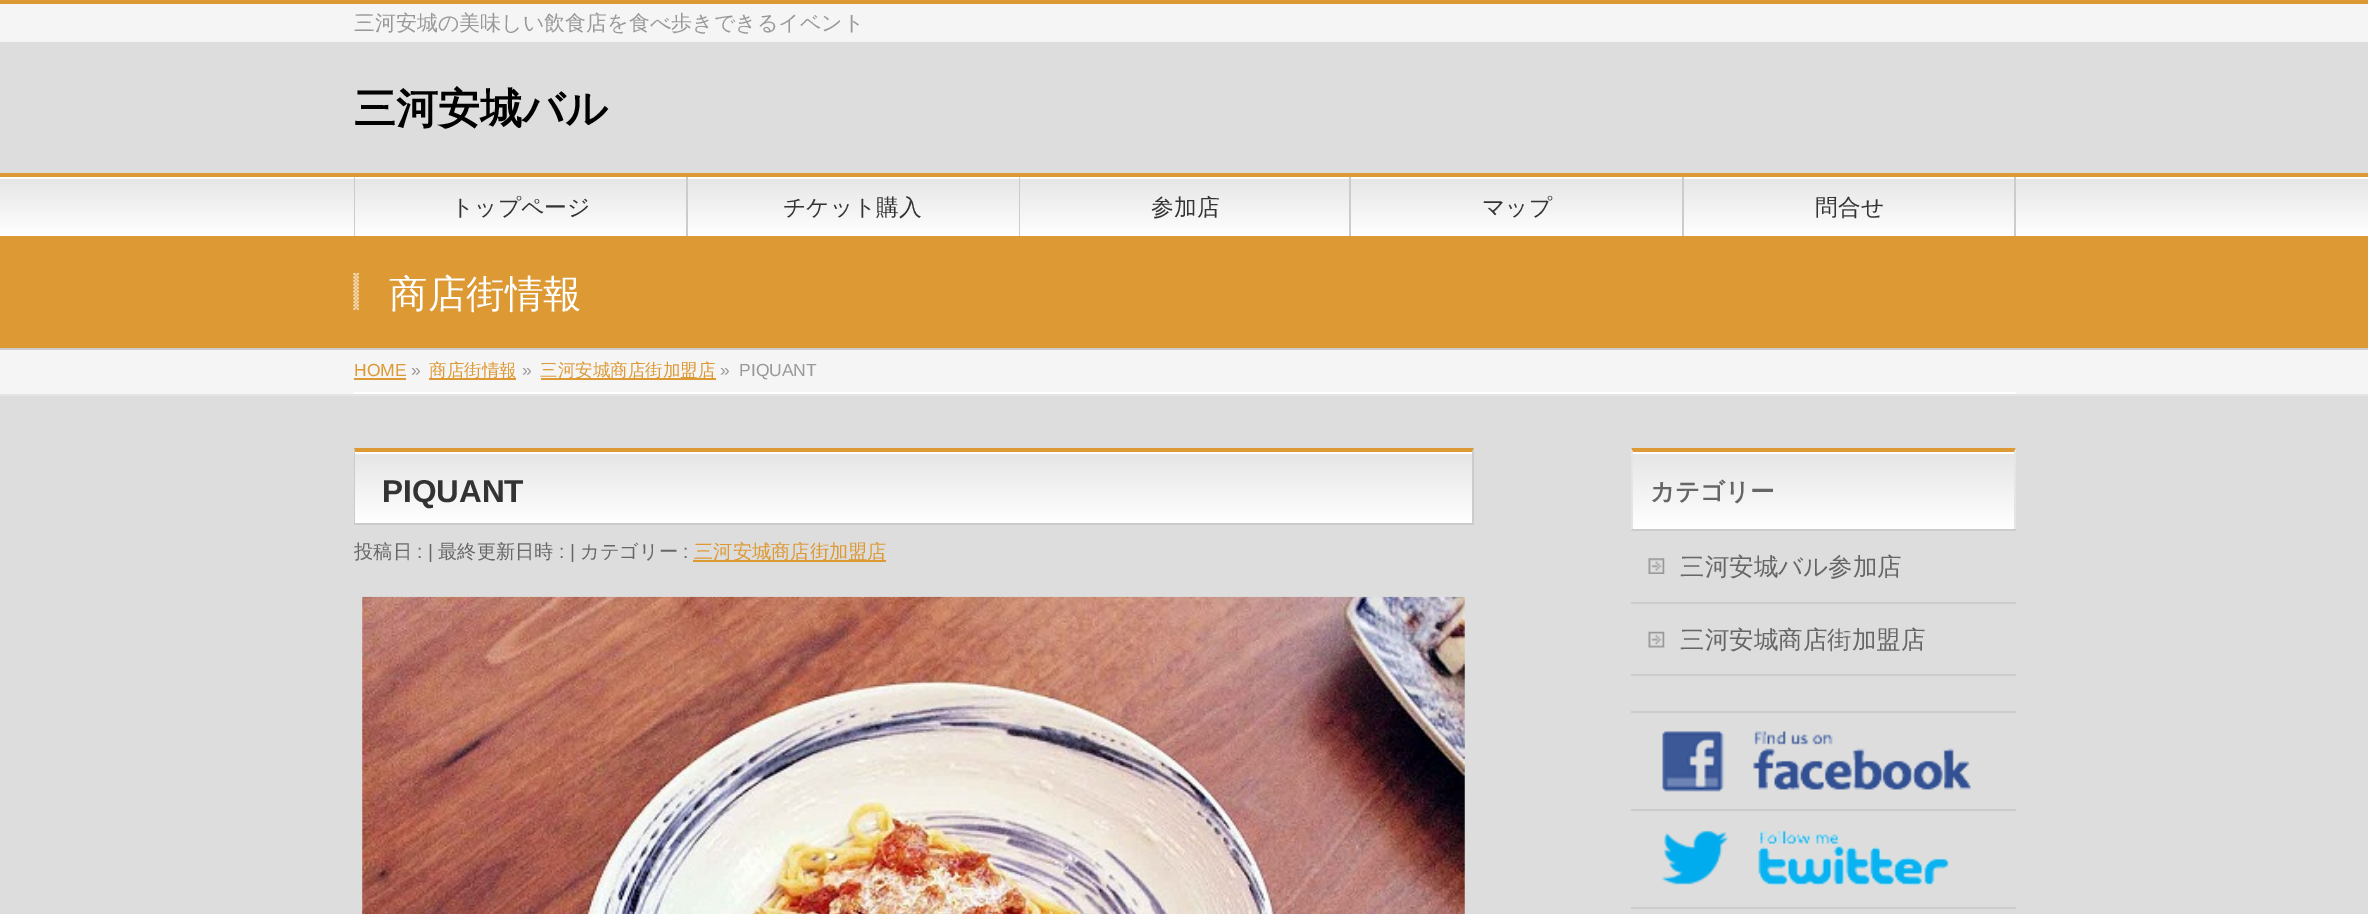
%!PS-Adobe-3.0
%%BoundingBox: 0 0 2368 914
%%LanguageLevel: 3
%%Pages: 1
%%EndComments
%%BeginProlog
/setink { 3 { 255 div 3 1 roll } repeat setrgbcolor } def
/usefont { [ exch dup neg 0 0 3 -1 roll 0 0 ] selectfont } def
/drawtext { setink usefont moveto show } def
/fillbox { setink rectfill } def
/drawimage { 5 dict begin { /h /w /y /x /name } { exch def } forall
  gsave x y translate w h scale
  w h 8 [w 0 0 h 0 0] name (r) file false 3 colorimage grestore end } def
%%EndProlog
%%BeginSetup
<< /PageSize [2368 914] >> setpagedevice
%%EndSetup
%%Page: 1 1
0 914 translate 1 -1 scale
4 setmiterlimit
0 0 2368 914 221 221 221 fillbox
0 4 2368 38 245 245 245 fillbox
0 0 2368 4 221 153 51 fillbox
(三河安城の美味しい飲食店を食べ歩きできるイベント) 354 30 /WenQuanYiZenHei-Medium 21 153 153 153 drawtext
(三河安城バル) 354 123 /WenQuanYiZenHei-Bold 42 0 0 0 drawtext
gsave 0 179 moveto 2368 179 lineto 2368 236 lineto 0 236 lineto closepath clip newpath
<< /ShadingType 2 /ColorSpace /DeviceRGB /Coords [1185 177 1185 236] /Extend [true true] /Function << /FunctionType 2 /Domain [0 1] /C0 [0.898 0.898 0.898] /C1 [1 1 1] /N 1 >> >> shfill grestore
0 177 2368 2 255 255 255 fillbox
0 173 2368 4 221 153 51 fillbox
354 177 1 59 204 204 204 fillbox
686 177 2 59 204 204 204 fillbox
(トップページ) 451 215 /WenQuanYiZenHei-Medium 22.75 51 51 51 drawtext
1019 177 1 59 204 204 204 fillbox
(チケット購入) 783 215 /WenQuanYiZenHei-Medium 22.75 51 51 51 drawtext
1349 177 2 59 204 204 204 fillbox
(参加店) 1151 215 /WenQuanYiZenHei-Medium 22.75 51 51 51 drawtext
1682 177 2 59 204 204 204 fillbox
(マップ) 1482 215 /WenQuanYiZenHei-Medium 22.75 51 51 51 drawtext
2014 177 2 59 204 204 204 fillbox
(問合せ) 1815 215 /WenQuanYiZenHei-Medium 22.75 51 51 51 drawtext
0 236 2368 112 221 153 51 fillbox
0 348 2368 2 204 204 204 fillbox
(assets/img1.rgb) 353 273 6 37 drawimage
(商店街情報) 389 307 /WenQuanYiZenHei-Medium 38.5 255 255 255 drawtext
0 350 2368 44 245 245 245 fillbox
0 394 2368 2 229 229 229 fillbox
354 392 1662 2 255 255 255 fillbox
(HOME) 354 376 /LiberationSans-Regular 17.5 221 153 51 drawtext
354 378 52 2 221 153 51 fillbox
(») 411 376 /LiberationSans-Regular 17.5 153 153 153 drawtext
429 378 87 2 221 153 51 fillbox
(商店街情報) 429 376 /WenQuanYiZenHei-Medium 17.5 221 153 51 drawtext
(») 522 376 /LiberationSans-Regular 17.5 153 153 153 drawtext
541 378 175 2 221 153 51 fillbox
(三河安城商店街加盟店) 540 376 /WenQuanYiZenHei-Medium 17.5 221 153 51 drawtext
(») 720 376 /LiberationSans-Regular 17.5 153 153 153 drawtext
(PIQUANT) 739 376 /LiberationSans-Regular 17.5 153 153 153 drawtext
gsave 355 454 moveto 1472 454 lineto 1472 523 lineto 355 523 lineto closepath clip newpath
<< /ShadingType 2 /ColorSpace /DeviceRGB /Coords [355 452 355 523] /Extend [true true] /Function << /FunctionType 2 /Domain [0 1] /C0 [0.898 0.898 0.898] /C1 [1 1 1] /N 1 >> >> shfill grestore
355 452 1117 2 255 255 255 fillbox
221 153 51 setink
354 448 moveto 1474 448 lineto 1472 452 lineto 355 452 lineto closepath fill
204 204 204 setink
1474 448 moveto 1474 525 lineto 1472 523 lineto 1472 452 lineto closepath fill
354 523 1120 2 204 204 204 fillbox
354 525 moveto 354 448 lineto 355 452 lineto 355 523 lineto closepath fill
(PIQUANT) 382 502 /LiberationSans-Bold 31.5 51 51 51 drawtext
(投稿日) 354 558 /WenQuanYiZenHei-Medium 19.25 102 102 102 drawtext
(: |) 417 558 /LiberationSans-Regular 19.25 102 102 102 drawtext
(最終更新日時) 438 558 /WenQuanYiZenHei-Medium 19.25 102 102 102 drawtext
(: |) 559 558 /LiberationSans-Regular 19.25 102 102 102 drawtext
(カテゴリー) 580 558 /WenQuanYiZenHei-Medium 19.25 102 102 102 drawtext
(:) 683 558 /LiberationSans-Regular 19.25 102 102 102 drawtext
693 560 193 2 221 153 51 fillbox
(三河安城商店街加盟店) 694 558 /WenQuanYiZenHei-Medium 19.25 221 153 51 drawtext
(assets/img2.rgb) 362 596 1103 318 drawimage
gsave 1633 454 moveto 2014 454 lineto 2014 529 lineto 1633 529 lineto closepath clip newpath
<< /ShadingType 2 /ColorSpace /DeviceRGB /Coords [1633 452 1633 529] /Extend [true true] /Function << /FunctionType 2 /Domain [0 1] /C0 [0.898 0.898 0.898] /C1 [1 1 1] /N 1 >> >> shfill grestore
1633 452 381 2 255 255 255 fillbox
221 153 51 setink
1631 448 moveto 2016 448 lineto 2014 452 lineto 1633 452 lineto closepath fill
229 229 229 setink
2016 448 moveto 2016 530 lineto 2014 528 lineto 2014 452 lineto closepath fill
1631 529 385 2 204 204 204 fillbox
229 229 229 setink
1631 530 moveto 1631 448 lineto 1633 452 lineto 1633 528 lineto closepath fill
(カテゴリー) 1650 500 /WenQuanYiZenHei-Bold 24.5 102 102 102 drawtext
1631 602 385 2 204 204 204 fillbox
(assets/img3.rgb) 1648 558 17 16 drawimage
(三河安城バル参加店) 1680 575 /WenQuanYiZenHei-Medium 24.5 102 102 102 drawtext
1631 674 385 2 204 204 204 fillbox
(assets/img4.rgb) 1648 631 17 17 drawimage
(三河安城商店街加盟店) 1680 648 /WenQuanYiZenHei-Medium 24.5 102 102 102 drawtext
1631 711 385 2 204 204 204 fillbox
1631 809 385 2 204 204 204 fillbox
(assets/img5.rgb) 1662 731 309 61 drawimage
1631 907 385 2 204 204 204 fillbox
(assets/img6.rgb) 1662 830 287 56 drawimage
showpage
%%EOF
